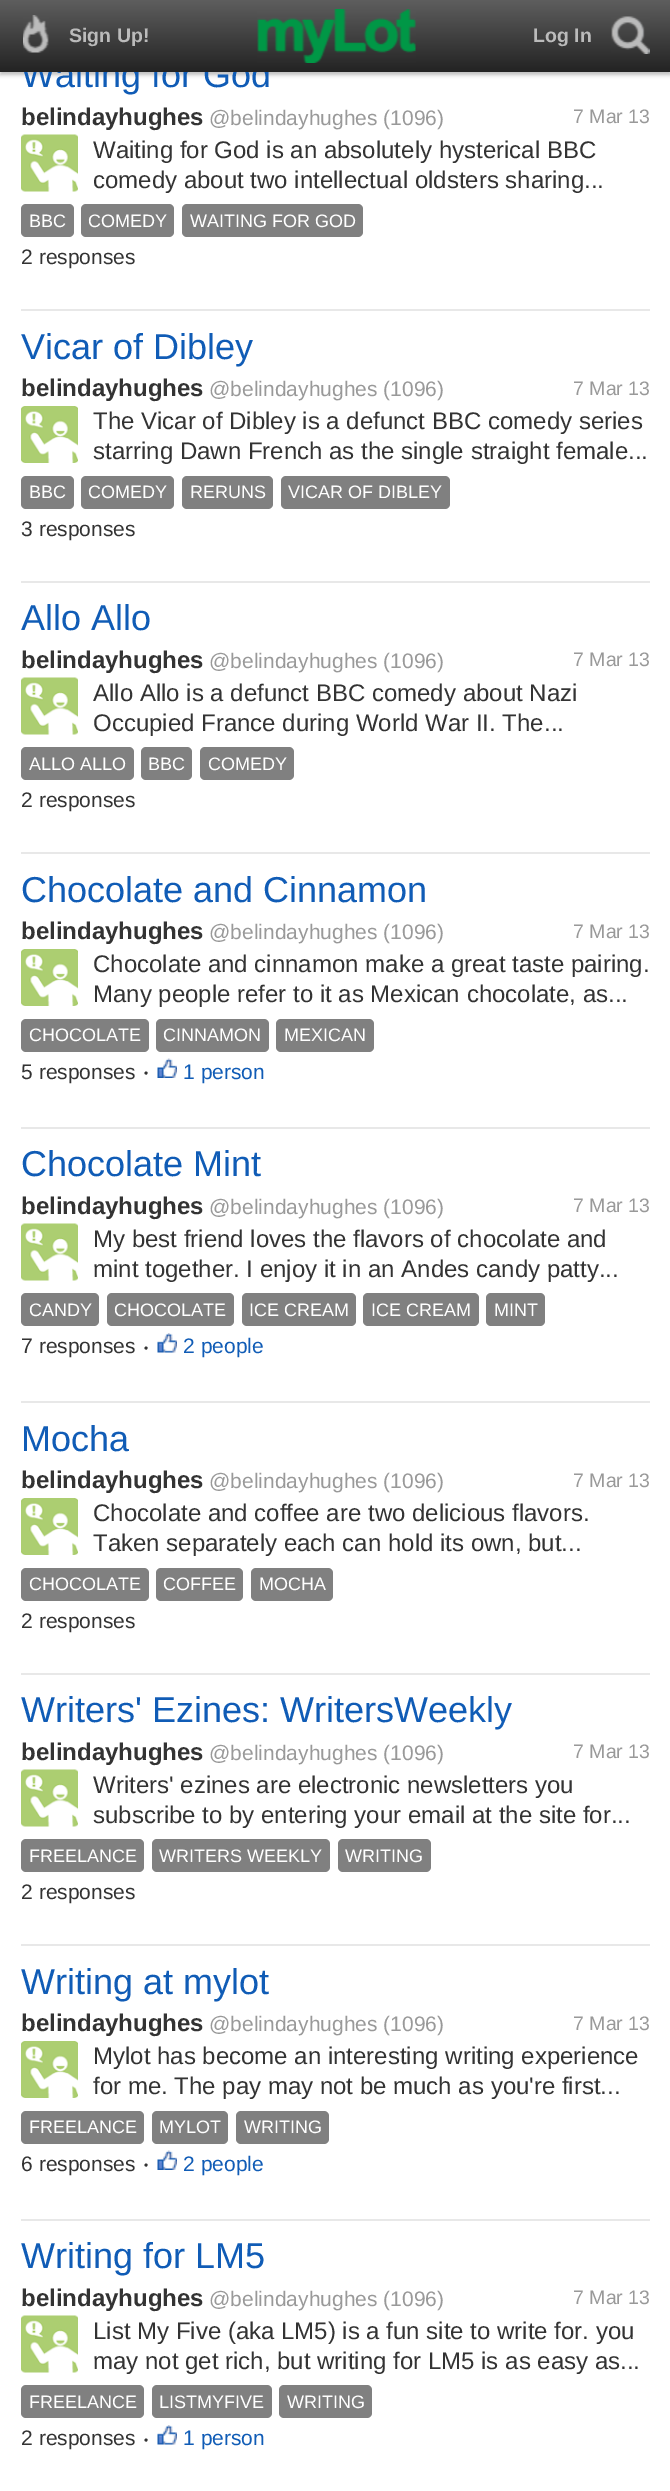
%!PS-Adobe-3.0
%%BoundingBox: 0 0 670 2491
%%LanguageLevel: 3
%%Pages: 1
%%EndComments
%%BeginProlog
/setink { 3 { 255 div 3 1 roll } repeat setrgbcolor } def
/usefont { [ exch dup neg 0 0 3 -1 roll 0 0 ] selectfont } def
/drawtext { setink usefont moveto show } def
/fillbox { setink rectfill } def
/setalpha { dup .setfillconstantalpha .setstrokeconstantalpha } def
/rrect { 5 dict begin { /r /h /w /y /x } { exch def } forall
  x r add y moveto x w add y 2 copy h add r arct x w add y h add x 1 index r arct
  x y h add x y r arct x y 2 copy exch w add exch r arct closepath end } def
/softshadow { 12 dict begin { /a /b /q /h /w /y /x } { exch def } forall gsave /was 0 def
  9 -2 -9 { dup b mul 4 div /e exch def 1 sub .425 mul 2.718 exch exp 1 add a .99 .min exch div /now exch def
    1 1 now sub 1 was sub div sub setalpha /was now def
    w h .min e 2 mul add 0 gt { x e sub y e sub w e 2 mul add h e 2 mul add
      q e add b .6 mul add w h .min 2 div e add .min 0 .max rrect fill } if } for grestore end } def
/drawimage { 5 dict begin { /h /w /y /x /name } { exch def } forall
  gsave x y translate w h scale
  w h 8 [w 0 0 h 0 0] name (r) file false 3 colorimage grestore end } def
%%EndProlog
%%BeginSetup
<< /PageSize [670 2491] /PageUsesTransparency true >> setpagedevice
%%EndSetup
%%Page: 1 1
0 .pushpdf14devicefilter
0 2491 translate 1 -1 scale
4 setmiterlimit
0 0 670 2491 255 255 255 fillbox
0 0 0 setink
0 3 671 72 0 2 0.25 softshadow
(Waiting for God) 21 87 /LiberationSans-Regular 36 16 92 182 drawtext
gsave 0 0 moveto 670 0 lineto 670 72 lineto 0 72 lineto closepath clip newpath
<< /ShadingType 2 /ColorSpace /DeviceRGB /Coords [335 0 335 72] /Extend [true true] /Function << /FunctionType 2 /Domain [0 1] /C0 [0.369 0.369 0.369] /C1 [0.137 0.137 0.137] /N 1 >> >> shfill grestore
(assets/img1.rgb) 23 15 26 38 drawimage
(Sign Up!) 69 42 /LiberationSans-Bold 19.5 187 187 187 drawtext
(assets/img2.rgb) 257 9 159 54 drawimage
(Log In) 533 42 /LiberationSans-Bold 19.5 187 187 187 drawtext
(assets/img3.rgb) 611 16 39 38 drawimage
(belindayhughes) 21 125 /LiberationSans-Bold 24 51 51 51 drawtext
(@belindayhughes \(1096\)) 209 125 /LiberationSans-Regular 21 153 153 153 drawtext
(7 Mar 13) 573 123 /LiberationSans-Regular 19.5 153 153 153 drawtext
(assets/img4.rgb) 21 134 57 58 drawimage
(Waiting for God is an absolutely hysterical BBC) 93 158 /LiberationSans-Regular 24 51 51 51 drawtext
(comedy about two intellectual oldsters sharing...) 93 188 /LiberationSans-Regular 24 51 51 51 drawtext
128 128 128 setink
21 204 53 33 5 rrect fill
(BBC) 29 227 /LiberationSans-Regular 18 255 255 255 drawtext
128 128 128 setink
81 204 93 33 5 rrect fill
(COMEDY) 88 227 /LiberationSans-Regular 18 255 255 255 drawtext
128 128 128 setink
182 204 181 33 5 rrect fill
(WAITING FOR GOD) 190 227 /LiberationSans-Regular 18 255 255 255 drawtext
(2 responses) 21 264 /LiberationSans-Regular 21 51 51 51 drawtext
21 309 629 2 232 232 232 fillbox
(Vicar of Dibley) 21 359 /LiberationSans-Regular 36 16 92 182 drawtext
(belindayhughes) 21 396 /LiberationSans-Bold 24 51 51 51 drawtext
(@belindayhughes \(1096\)) 209 396 /LiberationSans-Regular 21 153 153 153 drawtext
(7 Mar 13) 573 395 /LiberationSans-Regular 19.5 153 153 153 drawtext
(assets/img5.rgb) 21 406 57 57 drawimage
(The Vicar of Dibley is a defunct BBC comedy series) 93 429 /LiberationSans-Regular 24 51 51 51 drawtext
(starring Dawn French as the single straight female...) 93 459 /LiberationSans-Regular 24 51 51 51 drawtext
128 128 128 setink
21 476 53 33 5 rrect fill
(BBC) 29 498 /LiberationSans-Regular 18 255 255 255 drawtext
128 128 128 setink
81 476 93 33 5 rrect fill
(COMEDY) 88 498 /LiberationSans-Regular 18 255 255 255 drawtext
128 128 128 setink
182 476 91 33 5 rrect fill
(RERUNS) 190 498 /LiberationSans-Regular 18 255 255 255 drawtext
128 128 128 setink
281 476 169 33 5 rrect fill
(VICAR OF DIBLEY) 288 498 /LiberationSans-Regular 18 255 255 255 drawtext
(3 responses) 21 536 /LiberationSans-Regular 21 51 51 51 drawtext
21 581 629 2 232 232 232 fillbox
(Allo Allo) 21 630 /LiberationSans-Regular 36 16 92 182 drawtext
(belindayhughes) 21 668 /LiberationSans-Bold 24 51 51 51 drawtext
(@belindayhughes \(1096\)) 209 668 /LiberationSans-Regular 21 153 153 153 drawtext
(7 Mar 13) 573 666 /LiberationSans-Regular 19.5 153 153 153 drawtext
(assets/img4.rgb) 21 677 57 58 drawimage
(Allo Allo is a defunct BBC comedy about Nazi) 93 701 /LiberationSans-Regular 24 51 51 51 drawtext
(Occupied France during World War II. The...) 93 731 /LiberationSans-Regular 24 51 51 51 drawtext
128 128 128 setink
21 747 113 33 5 rrect fill
(ALLO ALLO) 29 770 /LiberationSans-Regular 18 255 255 255 drawtext
128 128 128 setink
141 747 51 33 5 rrect fill
(BBC) 148 770 /LiberationSans-Regular 18 255 255 255 drawtext
128 128 128 setink
200 747 94 33 5 rrect fill
(COMEDY) 208 770 /LiberationSans-Regular 18 255 255 255 drawtext
(2 responses) 21 807 /LiberationSans-Regular 21 51 51 51 drawtext
21 852 629 2 232 232 232 fillbox
(Chocolate and Cinnamon) 21 902 /LiberationSans-Regular 36 16 92 182 drawtext
(belindayhughes) 21 939 /LiberationSans-Bold 24 51 51 51 drawtext
(@belindayhughes \(1096\)) 209 939 /LiberationSans-Regular 21 153 153 153 drawtext
(7 Mar 13) 573 938 /LiberationSans-Regular 19.5 153 153 153 drawtext
(assets/img5.rgb) 21 949 57 57 drawimage
(Chocolate and cinnamon make a great taste pairing.) 93 972 /LiberationSans-Regular 24 51 51 51 drawtext
(Many people refer to it as Mexican chocolate, as...) 93 1002 /LiberationSans-Regular 24 51 51 51 drawtext
128 128 128 setink
21 1019 128 33 5 rrect fill
(CHOCOLATE) 29 1041 /LiberationSans-Regular 18 255 255 255 drawtext
128 128 128 setink
156 1019 113 33 5 rrect fill
(CINNAMON) 163 1041 /LiberationSans-Regular 18 255 255 255 drawtext
128 128 128 setink
276 1019 98 33 5 rrect fill
(MEXICAN) 284 1041 /LiberationSans-Regular 18 255 255 255 drawtext
(5 responses) 21 1079 /LiberationSans-Regular 21 51 51 51 drawtext
(•) 144 1077 /LiberationSans-Regular 12 51 51 51 drawtext
(assets/img6.rgb) 157 1058 20 20 drawimage
(1 person) 183 1079 /LiberationSans-Regular 21 16 92 182 drawtext
21 1127 629 2 232 232 232 fillbox
(Chocolate Mint) 21 1176 /LiberationSans-Regular 36 16 92 182 drawtext
(belindayhughes) 21 1214 /LiberationSans-Bold 24 51 51 51 drawtext
(@belindayhughes \(1096\)) 209 1214 /LiberationSans-Regular 21 153 153 153 drawtext
(7 Mar 13) 573 1212 /LiberationSans-Regular 19.5 153 153 153 drawtext
(assets/img4.rgb) 21 1223 57 58 drawimage
(My best friend loves the flavors of chocolate and) 93 1247 /LiberationSans-Regular 24 51 51 51 drawtext
(mint together. I enjoy it in an Andes candy patty...) 93 1277 /LiberationSans-Regular 24 51 51 51 drawtext
128 128 128 setink
21 1293 78 33 5 rrect fill
(CANDY) 29 1316 /LiberationSans-Regular 18 255 255 255 drawtext
128 128 128 setink
107 1293 127 33 5 rrect fill
(CHOCOLATE) 114 1316 /LiberationSans-Regular 18 255 255 255 drawtext
128 128 128 setink
242 1293 114 33 5 rrect fill
(ICE CREAM) 249 1316 /LiberationSans-Regular 18 255 255 255 drawtext
128 128 128 setink
363 1293 116 33 5 rrect fill
(ICE CREAM) 371 1316 /LiberationSans-Regular 18 255 255 255 drawtext
128 128 128 setink
486 1293 59 33 5 rrect fill
(MINT) 494 1316 /LiberationSans-Regular 18 255 255 255 drawtext
(7 responses) 21 1353 /LiberationSans-Regular 21 51 51 51 drawtext
(•) 144 1352 /LiberationSans-Regular 12 51 51 51 drawtext
(assets/img7.rgb) 157 1333 20 20 drawimage
(2 people) 183 1353 /LiberationSans-Regular 21 16 92 182 drawtext
21 1401 629 2 232 232 232 fillbox
(Mocha) 21 1451 /LiberationSans-Regular 36 16 92 182 drawtext
(belindayhughes) 21 1488 /LiberationSans-Bold 24 51 51 51 drawtext
(@belindayhughes \(1096\)) 209 1488 /LiberationSans-Regular 21 153 153 153 drawtext
(7 Mar 13) 573 1487 /LiberationSans-Regular 19.5 153 153 153 drawtext
(assets/img5.rgb) 21 1498 57 57 drawimage
(Chocolate and coffee are two delicious flavors.) 93 1521 /LiberationSans-Regular 24 51 51 51 drawtext
(Taken separately each can hold its own, but...) 93 1551 /LiberationSans-Regular 24 51 51 51 drawtext
128 128 128 setink
21 1568 128 33 5 rrect fill
(CHOCOLATE) 29 1590 /LiberationSans-Regular 18 255 255 255 drawtext
128 128 128 setink
156 1568 87 33 5 rrect fill
(COFFEE) 163 1590 /LiberationSans-Regular 18 255 255 255 drawtext
128 128 128 setink
251 1568 82 33 5 rrect fill
(MOCHA) 259 1590 /LiberationSans-Regular 18 255 255 255 drawtext
(2 responses) 21 1628 /LiberationSans-Regular 21 51 51 51 drawtext
21 1673 629 2 232 232 232 fillbox
(Writers' Ezines: WritersWeekly) 21 1722 /LiberationSans-Regular 36 16 92 182 drawtext
(belindayhughes) 21 1760 /LiberationSans-Bold 24 51 51 51 drawtext
(@belindayhughes \(1096\)) 209 1760 /LiberationSans-Regular 21 153 153 153 drawtext
(7 Mar 13) 573 1758 /LiberationSans-Regular 19.5 153 153 153 drawtext
(assets/img4.rgb) 21 1769 57 58 drawimage
(Writers' ezines are electronic newsletters you) 93 1793 /LiberationSans-Regular 24 51 51 51 drawtext
(subscribe to by entering your email at the site for...) 93 1823 /LiberationSans-Regular 24 51 51 51 drawtext
128 128 128 setink
21 1839 123 33 5 rrect fill
(FREELANCE) 29 1862 /LiberationSans-Regular 18 255 255 255 drawtext
128 128 128 setink
152 1839 178 33 5 rrect fill
(WRITERS WEEKLY) 159 1862 /LiberationSans-Regular 18 255 255 255 drawtext
128 128 128 setink
338 1839 93 33 5 rrect fill
(WRITING) 345 1862 /LiberationSans-Regular 18 255 255 255 drawtext
(2 responses) 21 1899 /LiberationSans-Regular 21 51 51 51 drawtext
21 1944 629 2 232 232 232 fillbox
(Writing at mylot) 21 1994 /LiberationSans-Regular 36 16 92 182 drawtext
(belindayhughes) 21 2031 /LiberationSans-Bold 24 51 51 51 drawtext
(@belindayhughes \(1096\)) 209 2031 /LiberationSans-Regular 21 153 153 153 drawtext
(7 Mar 13) 573 2030 /LiberationSans-Regular 19.5 153 153 153 drawtext
(assets/img8.rgb) 21 2041 57 57 drawimage
(Mylot has become an interesting writing experience) 93 2064 /LiberationSans-Regular 24 51 51 51 drawtext
(for me. The pay may not be much as you're first...) 93 2094 /LiberationSans-Regular 24 51 51 51 drawtext
128 128 128 setink
21 2111 123 33 5 rrect fill
(FREELANCE) 29 2133 /LiberationSans-Regular 18 255 255 255 drawtext
128 128 128 setink
152 2111 76 33 5 rrect fill
(MYLOT) 159 2133 /LiberationSans-Regular 18 255 255 255 drawtext
128 128 128 setink
236 2111 93 33 5 rrect fill
(WRITING) 244 2133 /LiberationSans-Regular 18 255 255 255 drawtext
(6 responses) 21 2171 /LiberationSans-Regular 21 51 51 51 drawtext
(•) 144 2169 /LiberationSans-Regular 12 51 51 51 drawtext
(assets/img6.rgb) 157 2150 20 20 drawimage
(2 people) 183 2171 /LiberationSans-Regular 21 16 92 182 drawtext
21 2219 629 2 232 232 232 fillbox
(Writing for LM5) 21 2268 /LiberationSans-Regular 36 16 92 182 drawtext
(belindayhughes) 21 2306 /LiberationSans-Bold 24 51 51 51 drawtext
(@belindayhughes \(1096\)) 209 2306 /LiberationSans-Regular 21 153 153 153 drawtext
(7 Mar 13) 573 2304 /LiberationSans-Regular 19.5 153 153 153 drawtext
(assets/img4.rgb) 21 2315 57 58 drawimage
(List My Five \(aka LM5\) is a fun site to write for. you) 93 2339 /LiberationSans-Regular 24 51 51 51 drawtext
(may not get rich, but writing for LM5 is as easy as...) 93 2369 /LiberationSans-Regular 24 51 51 51 drawtext
128 128 128 setink
21 2385 123 33 5 rrect fill
(FREELANCE) 29 2408 /LiberationSans-Regular 18 255 255 255 drawtext
128 128 128 setink
152 2385 120 33 5 rrect fill
(LISTMYFIVE) 159 2408 /LiberationSans-Regular 18 255 255 255 drawtext
128 128 128 setink
279 2385 93 33 5 rrect fill
(WRITING) 287 2408 /LiberationSans-Regular 18 255 255 255 drawtext
(2 responses) 21 2445 /LiberationSans-Regular 21 51 51 51 drawtext
(•) 144 2444 /LiberationSans-Regular 12 51 51 51 drawtext
(assets/img7.rgb) 157 2425 20 20 drawimage
(1 person) 183 2445 /LiberationSans-Regular 21 16 92 182 drawtext
.poppdf14devicefilter showpage
%%EOF
